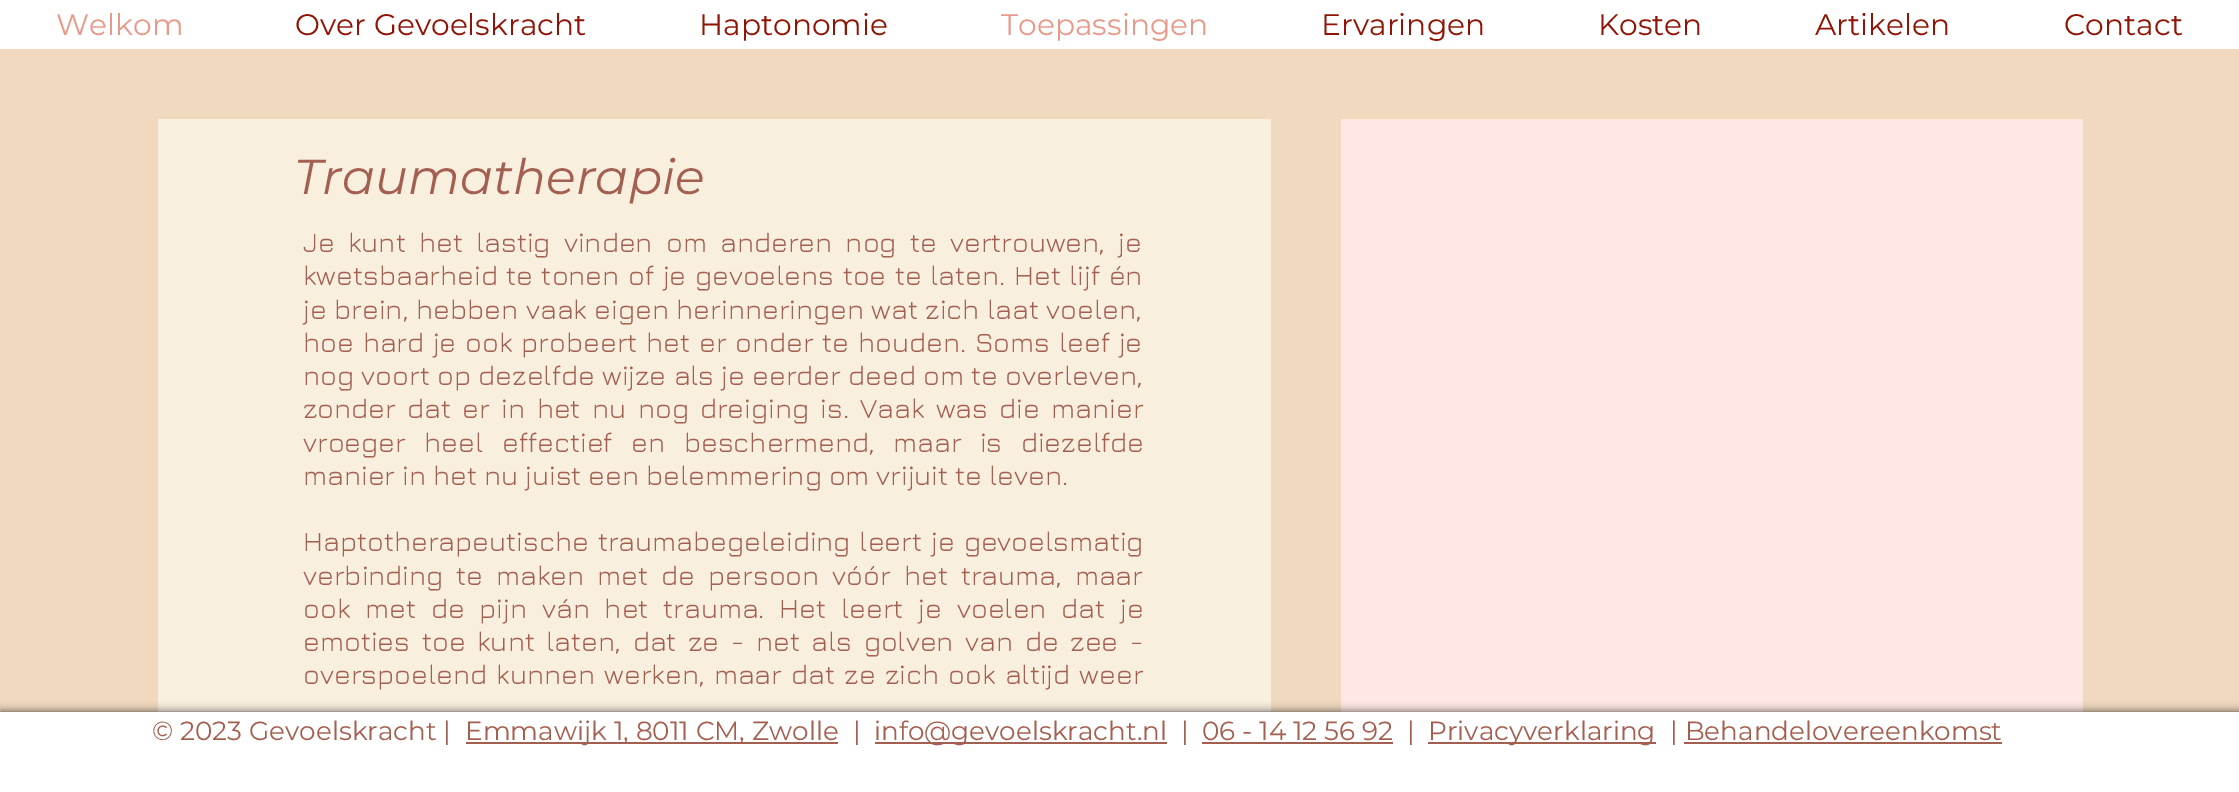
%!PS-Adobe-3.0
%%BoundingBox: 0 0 2239 792
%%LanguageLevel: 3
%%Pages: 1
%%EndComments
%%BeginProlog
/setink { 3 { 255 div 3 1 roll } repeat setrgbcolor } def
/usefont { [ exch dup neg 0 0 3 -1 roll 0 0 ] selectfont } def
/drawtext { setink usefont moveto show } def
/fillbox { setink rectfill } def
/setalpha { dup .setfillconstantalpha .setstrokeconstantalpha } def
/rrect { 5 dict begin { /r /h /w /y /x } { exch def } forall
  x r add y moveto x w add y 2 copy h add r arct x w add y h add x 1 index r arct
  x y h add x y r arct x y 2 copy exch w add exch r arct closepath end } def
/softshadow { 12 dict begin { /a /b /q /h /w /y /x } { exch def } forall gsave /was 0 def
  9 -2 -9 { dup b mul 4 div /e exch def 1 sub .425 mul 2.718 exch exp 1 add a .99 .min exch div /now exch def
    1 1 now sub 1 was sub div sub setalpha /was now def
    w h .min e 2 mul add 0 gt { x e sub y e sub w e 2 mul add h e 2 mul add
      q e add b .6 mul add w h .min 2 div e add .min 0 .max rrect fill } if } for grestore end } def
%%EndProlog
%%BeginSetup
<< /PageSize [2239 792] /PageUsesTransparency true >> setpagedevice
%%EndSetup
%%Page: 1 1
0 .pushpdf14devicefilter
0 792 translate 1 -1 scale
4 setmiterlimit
0 0 2239 792 241 217 191 fillbox
0 0 2239 49 255 255 255 fillbox
(Welkom) 56 35 /Montserrat-Regular 29.75 232 153 137 drawtext
(Over Gevoelskracht) 295 35 /Montserrat-Regular 29.75 143 20 6 drawtext
(Haptonomie) 699 35 /Montserrat-Regular 29.75 143 20 6 drawtext
(Toepassingen) 1001 35 /Montserrat-Regular 29.75 232 153 137 drawtext
(Ervaringen) 1321 35 /Montserrat-Regular 29.75 143 20 6 drawtext
(Kosten) 1598 35 /Montserrat-Regular 29.75 143 20 6 drawtext
(Artikelen) 1815 35 /Montserrat-Regular 29.75 143 20 6 drawtext
(Contact) 2064 35 /Montserrat-Regular 29.75 143 20 6 drawtext
158 119 1113 593 249 239 223 fillbox
(Traumatherapie) 294 194 /Montserrat-Italic 49 163 95 80 drawtext
/Jura-Regular 28 usefont
303 252 moveto 6.25 0 32 (Je kunt het lastig vinden om anderen nog te vertrouwen, je) widthshow
303 285 moveto 1.5 0 32 (kwetsbaarheid te tonen of je gevoelens toe te laten. Het lijf én) widthshow
303 319 moveto 0.5 0 32 (je brein, hebben vaak eigen herinneringen wat zich laat voelen,) widthshow
303 352 moveto 1.75 0 32 (hoe hard je ook probeert het er onder te houden. Soms leef je) widthshow
303 385 moveto 0.25 0 32 (nog voort op dezelfde wijze als je eerder deed om te overleven,) widthshow
303 418 moveto 4.4 0 32 (zonder dat er in het nu nog dreiging is. Vaak was die manier) widthshow
303 452 moveto 11.5 0 32 (vroeger heel effectief en beschermend, maar is diezelfde) widthshow
(manier in het nu juist een belemmering om vrijuit te leven.) 303 485 /Jura-Regular 28 163 95 80 drawtext
303 551 moveto 2 0 32 (Haptotherapeutische traumabegeleiding leert je gevoelsmatig) widthshow
303 585 moveto 6 0 32 (verbinding te maken met de persoon vóór het trauma, maar) widthshow
303 618 moveto 7.75 0 32 (ook met de pijn ván het trauma. Het leert je voelen dat je) widthshow
303 651 moveto 4.6 0 32 (emoties toe kunt laten, dat ze - net als golven van de zee -) widthshow
303 684 moveto 2.25 0 32 (overspoelend kunnen werken, maar dat ze zich ook altijd weer) widthshow
1341 119 742 593 255 232 227 fillbox
0 0 0 setink
0 712 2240 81 0 4.5 0.7 softshadow
0 712 2239 80 255 255 255 fillbox
(© 2023 Gevoelskracht |) 152 740 /Montserrat-Regular 26.25 163 95 80 drawtext
466 742 372 2 163 95 80 fillbox
(Emmawijk 1, 8011 CM, Zwolle) 465 740 /Montserrat-Regular 26.25 163 95 80 drawtext
(|) 853 740 /Montserrat-Regular 26.25 163 95 80 drawtext
875 742 292 2 163 95 80 fillbox
(info@gevoelskracht.nl) 874 740 /Montserrat-Regular 26.25 163 95 80 drawtext
(|) 1181 740 /Montserrat-Regular 26.25 163 95 80 drawtext
(06 - 14 12 56 92) 1202 740 /Montserrat-Regular 26.25 163 95 80 drawtext
1202 742 191 2 163 95 80 fillbox
(|) 1407 740 /Montserrat-Regular 26.25 163 95 80 drawtext
1428 742 228 2 163 95 80 fillbox
(Privacyverklaring) 1428 740 /Montserrat-Regular 26.25 163 95 80 drawtext
(| Behandelovereenkomst) 1670 740 /Montserrat-Regular 26.25 163 95 80 drawtext
1684 742 318 2 163 95 80 fillbox
.poppdf14devicefilter showpage
%%EOF
